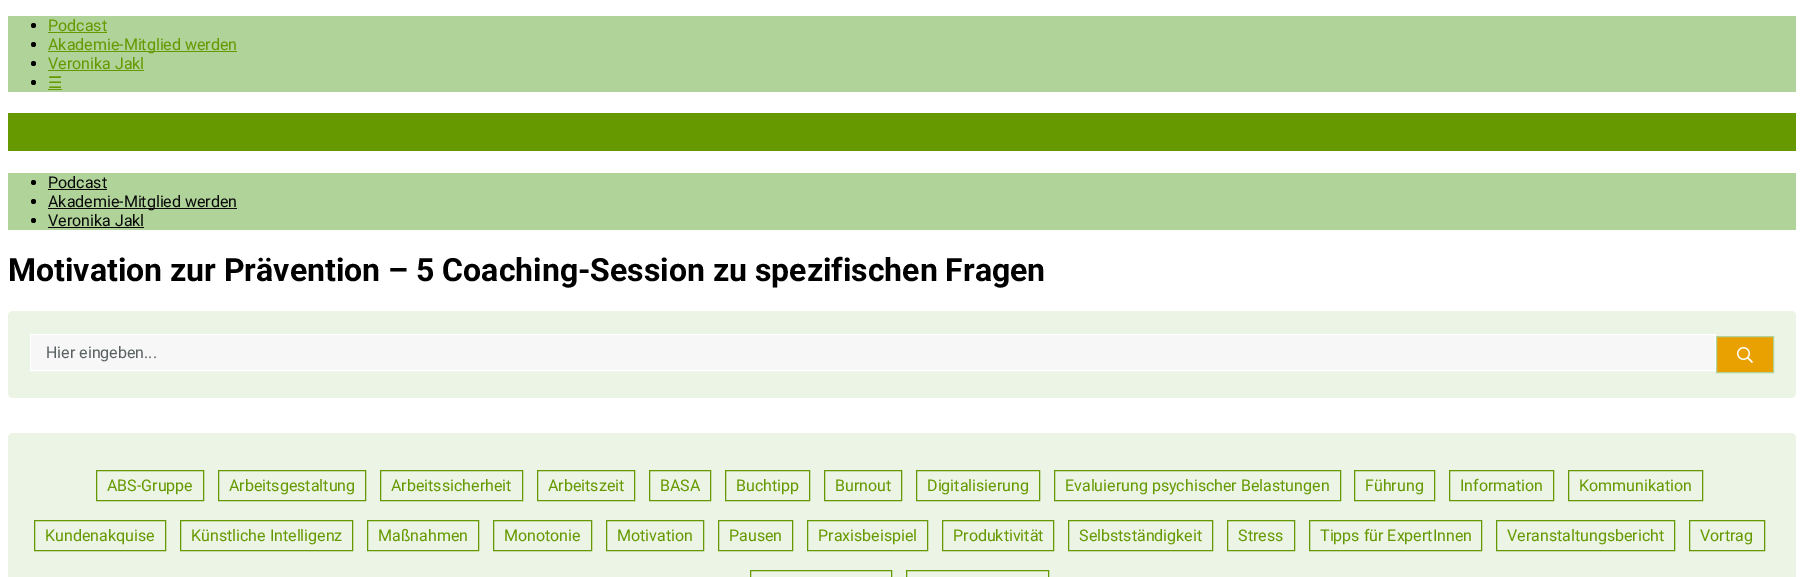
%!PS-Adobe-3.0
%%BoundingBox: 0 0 1804 577
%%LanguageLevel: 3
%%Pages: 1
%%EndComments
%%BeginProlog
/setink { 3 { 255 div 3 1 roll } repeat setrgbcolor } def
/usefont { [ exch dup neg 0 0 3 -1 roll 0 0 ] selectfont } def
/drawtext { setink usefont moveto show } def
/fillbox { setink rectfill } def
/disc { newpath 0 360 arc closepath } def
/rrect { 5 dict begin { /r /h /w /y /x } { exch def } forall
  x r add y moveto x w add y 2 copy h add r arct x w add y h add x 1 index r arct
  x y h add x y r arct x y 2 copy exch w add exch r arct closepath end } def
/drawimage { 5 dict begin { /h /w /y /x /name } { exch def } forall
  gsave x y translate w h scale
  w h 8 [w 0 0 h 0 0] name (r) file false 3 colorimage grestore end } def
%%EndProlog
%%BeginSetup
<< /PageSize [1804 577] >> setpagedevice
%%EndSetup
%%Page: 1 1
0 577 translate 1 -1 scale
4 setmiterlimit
0 0 1804 577 255 255 255 fillbox
8 16 1788 76 175 211 152 fillbox
0 0 0 setink
33.5 25.5 2.5 disc fill
(Podcast) 48 31 /Roboto-Regular 16 102 153 0 drawtext
48 32 59 1 102 153 0 fillbox
0 0 0 setink
33.5 44.5 2.5 disc fill
48 51 189 1 102 153 0 fillbox
(Akademie-Mitglied werden) 48 50 /Roboto-Regular 16 102 153 0 drawtext
0 0 0 setink
33.5 63.5 2.5 disc fill
(Veronika Jakl) 48 69 /Roboto-Regular 16 102 153 0 drawtext
48 70 96 1 102 153 0 fillbox
0 0 0 setink
33.5 82.5 2.5 disc fill
(☰) 48 88 /DejaVuSans-Regular 16 102 153 0 drawtext
48 89 14 1 102 153 0 fillbox
8 113 1788 38 102 153 0 fillbox
8 173 1788 57 175 211 152 fillbox
0 0 0 setink
33.5 182.5 2.5 disc fill
(Podcast) 48 188 /Roboto-Regular 16 10 10 10 drawtext
48 189 59 1 10 10 10 fillbox
0 0 0 setink
33.5 201.5 2.5 disc fill
48 208 189 1 10 10 10 fillbox
(Akademie-Mitglied werden) 48 207 /Roboto-Regular 16 10 10 10 drawtext
0 0 0 setink
33.5 220.5 2.5 disc fill
(Veronika Jakl) 48 226 /Roboto-Regular 16 10 10 10 drawtext
48 227 96 1 10 10 10 fillbox
(Motivation zur Prävention – 5 Coaching-Session zu spezifischen Fragen) 8 281 /Roboto-Bold 32 0 0 0 drawtext
235 244 229 setink
8 311 1788 87 5 rrect fill
247 247 247 setink
30.5 334.5 moveto 1715.5 334.5 lineto 1715.5 370.5 lineto 30.5 370.5 lineto closepath gsave fill grestore
255 255 255 setink
stroke
(Hier eingeben...) 46 358 /Roboto-Regular 16 89 97 98 drawtext
233 160 1 setink
1716.5 336.5 moveto 1773.5 336.5 lineto 1773.5 372.5 lineto 1716.5 372.5 lineto closepath gsave fill grestore
175 211 152 setink
stroke
(assets/img1.rgb) 1737 347 16 16 drawimage
235 244 229 setink
8 433 1788 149 5 rrect fill
102 153 0 setink
96.5 470.5 107 30 rectstroke
(ABS-Gruppe) 107 491 /Roboto-Regular 16 102 153 0 drawtext
218.5 470.5 147 30 rectstroke
(Arbeitsgestaltung) 229 491 /Roboto-Regular 16 102 153 0 drawtext
380.5 470.5 142 30 rectstroke
(Arbeitssicherheit) 391 491 /Roboto-Regular 16 102 153 0 drawtext
537.5 470.5 97 30 rectstroke
(Arbeitszeit) 548 491 /Roboto-Regular 16 102 153 0 drawtext
649.5 470.5 61 30 rectstroke
(BASA) 660 491 /Roboto-Regular 16 102 153 0 drawtext
725.5 470.5 84 30 rectstroke
(Buchtipp) 736 491 /Roboto-Regular 16 102 153 0 drawtext
824.5 470.5 77 30 rectstroke
(Burnout) 835 491 /Roboto-Regular 16 102 153 0 drawtext
916.5 470.5 123 30 rectstroke
(Digitalisierung) 927 491 /Roboto-Regular 16 102 153 0 drawtext
1054.5 470.5 286 30 rectstroke
(Evaluierung psychischer Belastungen) 1065 491 /Roboto-Regular 16 102 153 0 drawtext
1354.5 470.5 80 30 rectstroke
(Führung) 1365 491 /Roboto-Regular 16 102 153 0 drawtext
1449.5 470.5 104 30 rectstroke
(Information) 1460 491 /Roboto-Regular 16 102 153 0 drawtext
1568.5 470.5 134 30 rectstroke
(Kommunikation) 1579 491 /Roboto-Regular 16 102 153 0 drawtext
34.5 520.5 131 30 rectstroke
(Kundenakquise) 45 541 /Roboto-Regular 16 102 153 0 drawtext
180.5 520.5 172 30 rectstroke
(Künstliche Intelligenz) 191 541 /Roboto-Regular 16 102 153 0 drawtext
367.5 520.5 111 30 rectstroke
(Maßnahmen) 378 541 /Roboto-Regular 16 102 153 0 drawtext
493.5 520.5 98 30 rectstroke
(Monotonie) 504 541 /Roboto-Regular 16 102 153 0 drawtext
606.5 520.5 97 30 rectstroke
(Motivation) 617 541 /Roboto-Regular 16 102 153 0 drawtext
718.5 520.5 74 30 rectstroke
(Pausen) 729 541 /Roboto-Regular 16 102 153 0 drawtext
807.5 520.5 120 30 rectstroke
(Praxisbeispiel) 818 541 /Roboto-Regular 16 102 153 0 drawtext
942.5 520.5 111 30 rectstroke
(Produktivität) 953 541 /Roboto-Regular 16 102 153 0 drawtext
1068.5 520.5 144 30 rectstroke
(Selbstständigkeit) 1079 541 /Roboto-Regular 16 102 153 0 drawtext
1227.5 520.5 67 30 rectstroke
(Stress) 1238 541 /Roboto-Regular 16 102 153 0 drawtext
1309.5 520.5 172 30 rectstroke
(Tipps für ExpertInnen) 1320 541 /Roboto-Regular 16 102 153 0 drawtext
1496.5 520.5 178 30 rectstroke
(Veranstaltungsbericht) 1507 541 /Roboto-Regular 16 102 153 0 drawtext
1689.5 520.5 75 30 rectstroke
(Vortrag) 1700 541 /Roboto-Regular 16 102 153 0 drawtext
750.5 570.5 141 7 rectstroke
906.5 570.5 142 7 rectstroke
showpage
%%EOF
